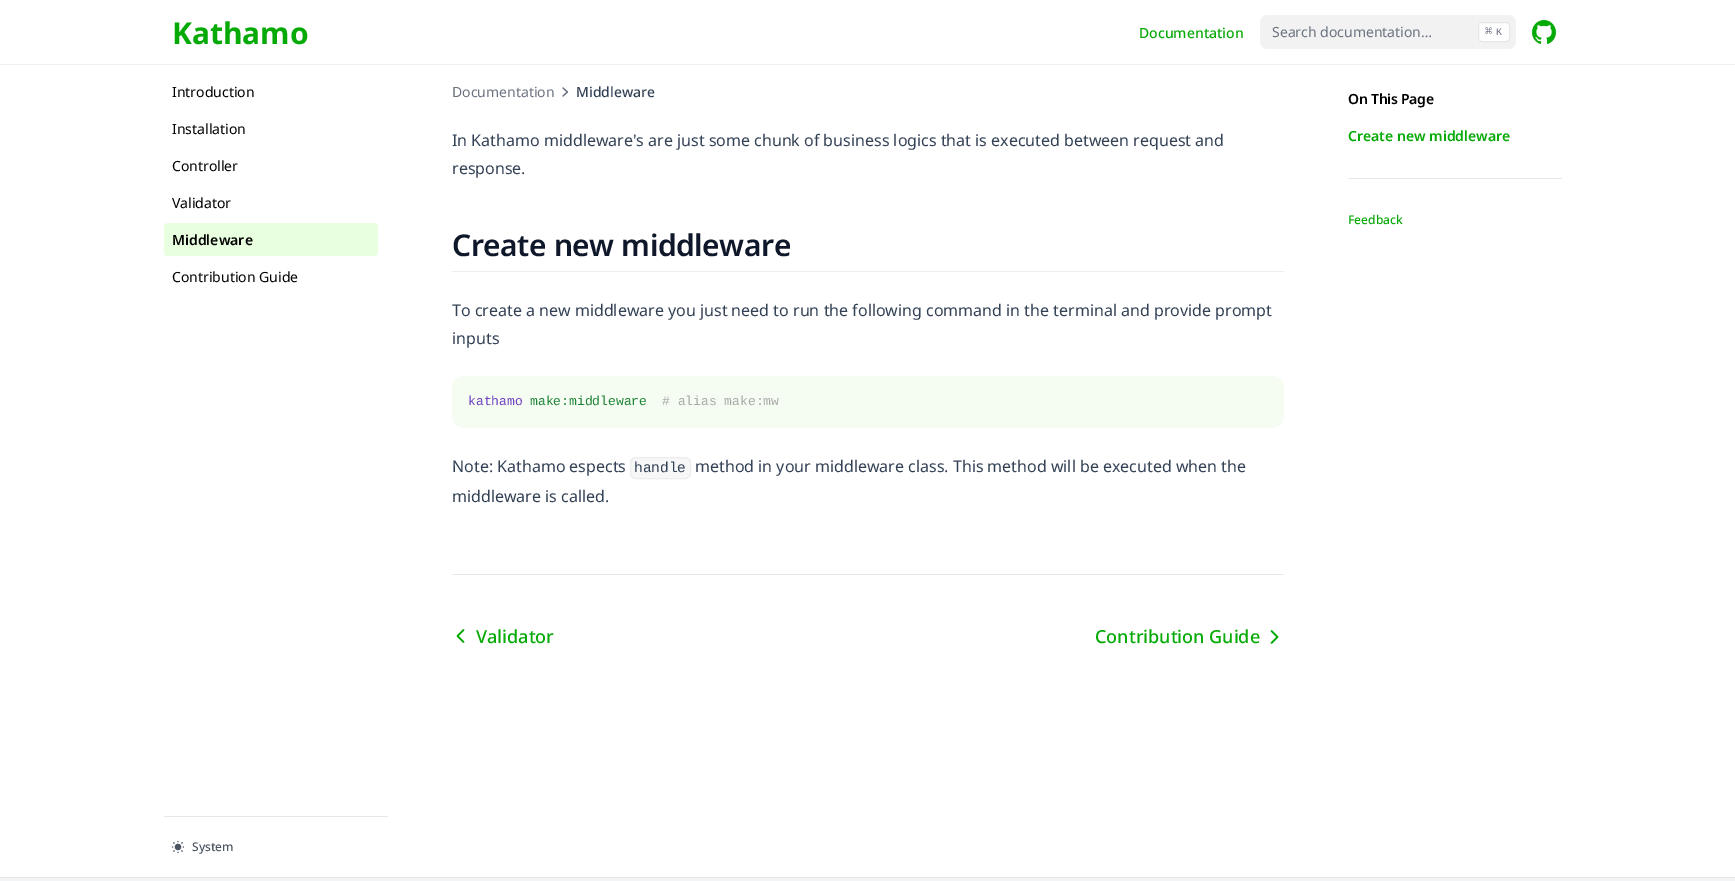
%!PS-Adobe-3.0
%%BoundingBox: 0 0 1735 881
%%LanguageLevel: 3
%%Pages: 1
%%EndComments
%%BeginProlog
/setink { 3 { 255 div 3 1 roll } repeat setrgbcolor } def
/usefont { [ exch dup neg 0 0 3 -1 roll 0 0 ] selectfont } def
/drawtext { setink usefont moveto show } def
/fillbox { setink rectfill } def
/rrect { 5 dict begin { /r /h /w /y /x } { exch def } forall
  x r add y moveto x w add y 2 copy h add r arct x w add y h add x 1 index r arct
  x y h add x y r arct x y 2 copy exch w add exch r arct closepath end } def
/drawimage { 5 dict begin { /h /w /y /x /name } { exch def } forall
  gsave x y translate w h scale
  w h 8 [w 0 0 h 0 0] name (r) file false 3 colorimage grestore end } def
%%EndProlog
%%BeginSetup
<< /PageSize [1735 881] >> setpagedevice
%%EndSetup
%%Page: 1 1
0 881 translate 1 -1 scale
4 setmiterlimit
0 0 1735 881 255 255 255 fillbox
(Kathamo) 172 44 /NotoSans-Bold 30 6 170 6 drawtext
(Documentation) 1139 38 /NotoSans-Medium 14 6 170 6 drawtext
242 242 242 setink
1260 15 256 34 8 rrect fill
(Search documentation…) 1272 37 /NotoSans-Regular 14 107 114 128 drawtext
255 255 255 setink
1478.5 22.5 31 19 3.5 rrect gsave fill grestore
229 231 235 setink
stroke
(⌘) 1485 35 /DejaVuSansMono-Regular 12 107 114 128 drawtext
(K) 1496 35 /LiberationMono-Regular 10 107 114 128 drawtext
(assets/img1.rgb) 1532 20 24 24 drawimage
0 64 1735 1 240 240 240 fillbox
(Introduction) 172 97 /NotoSans-Regular 14 0 0 0 drawtext
(Installation) 172 134 /NotoSans-Regular 14 0 0 0 drawtext
(Controller) 172 171 /NotoSans-Regular 14 0 0 0 drawtext
(Validator) 172 208 /NotoSans-Regular 14 0 0 0 drawtext
232 255 224 setink
164 223 214 33 4 rrect fill
(Middleware) 172 245 /NotoSans-SemiBold 14 0 0 0 drawtext
(Contribution Guide) 172 282 /NotoSans-Regular 14 0 0 0 drawtext
164 816 224 1 229 231 235 fillbox
(assets/img2.rgb) 172 841 12 12 drawimage
(System) 192 851 /NotoSans-Medium 12 75 85 99 drawtext
(Documentation) 452 97 /NotoSans-Regular 14 107 114 128 drawtext
1.2 setlinewidth
1 setlinecap
1 setlinejoin
563 88 moveto 567.5 92 lineto 563 96 lineto stroke
(Middleware) 576 97 /NotoSans-Medium 14 51 65 85 drawtext
(In Kathamo middleware's are just some chunk of business logics that is executed between request and) 452 146 /NotoSans-Regular 16 51 65 85 drawtext
(response.) 452 174 /NotoSans-Regular 16 51 65 85 drawtext
452 271 832 1 238 238 238 fillbox
/NotoSans-SemiBold 30 usefont
15 23 42 setink
452 256 moveto -0.45 0 (Create new middleware) ashow
(To create a new middleware you just need to run the following command in the terminal and provide prompt) 452 316 /NotoSans-Regular 16 51 65 85 drawtext
(inputs) 452 344 /NotoSans-Regular 16 51 65 85 drawtext
245 252 242 setink
452 376 832 52 12 rrect fill
(kathamo) 468 405 /LiberationMono-Regular 13 111 66 193 drawtext
(make:middleware) 530 405 /LiberationMono-Regular 13 34 134 58 drawtext
(# alias make:mw) 662 405 /LiberationMono-Regular 13 170 170 170 drawtext
(Note: Kathamo espects) 452 472 /NotoSans-Regular 16 51 65 85 drawtext
247 247 247 setink
630.5 457.5 60 21 5.5 rrect gsave fill grestore
237 237 237 setink
1 setlinewidth
0 setlinecap
0 setlinejoin
stroke
(handle) 634 472 /LiberationMono-Regular 14.5 51 65 85 drawtext
(method in your middleware class. This method will be executed when the) 695 472 /NotoSans-Regular 16 51 65 85 drawtext
(middleware is called.) 452 502 /NotoSans-Regular 16 51 65 85 drawtext
452 574 832 1 229 231 235 fillbox
6 170 6 setink
1.7 setlinewidth
1 setlinecap
1 setlinejoin
463.5 642 moveto 457.5 636 lineto 463.5 630 lineto stroke
(Validator) 476 643 /NotoSans-Medium 18 6 170 6 drawtext
(Contribution Guide) 1095 643 /NotoSans-Medium 18 6 170 6 drawtext
1271.5 631 moveto 1277.5 637 lineto 1271.5 643 lineto stroke
/NotoSans-SemiBold 14 usefont
0 0 0 setink
1348 104 moveto -0.25 0 (On This Page) ashow
(Create new middleware) 1348 141 /NotoSans-SemiBold 14 6 170 6 drawtext
1348 178 214 1 229 231 235 fillbox
(Feedback) 1348 224 /NotoSans-Medium 12 6 170 6 drawtext
0 878 1735 3 243 244 246 fillbox
0 877 1735 1 229 231 235 fillbox
showpage
%%EOF
